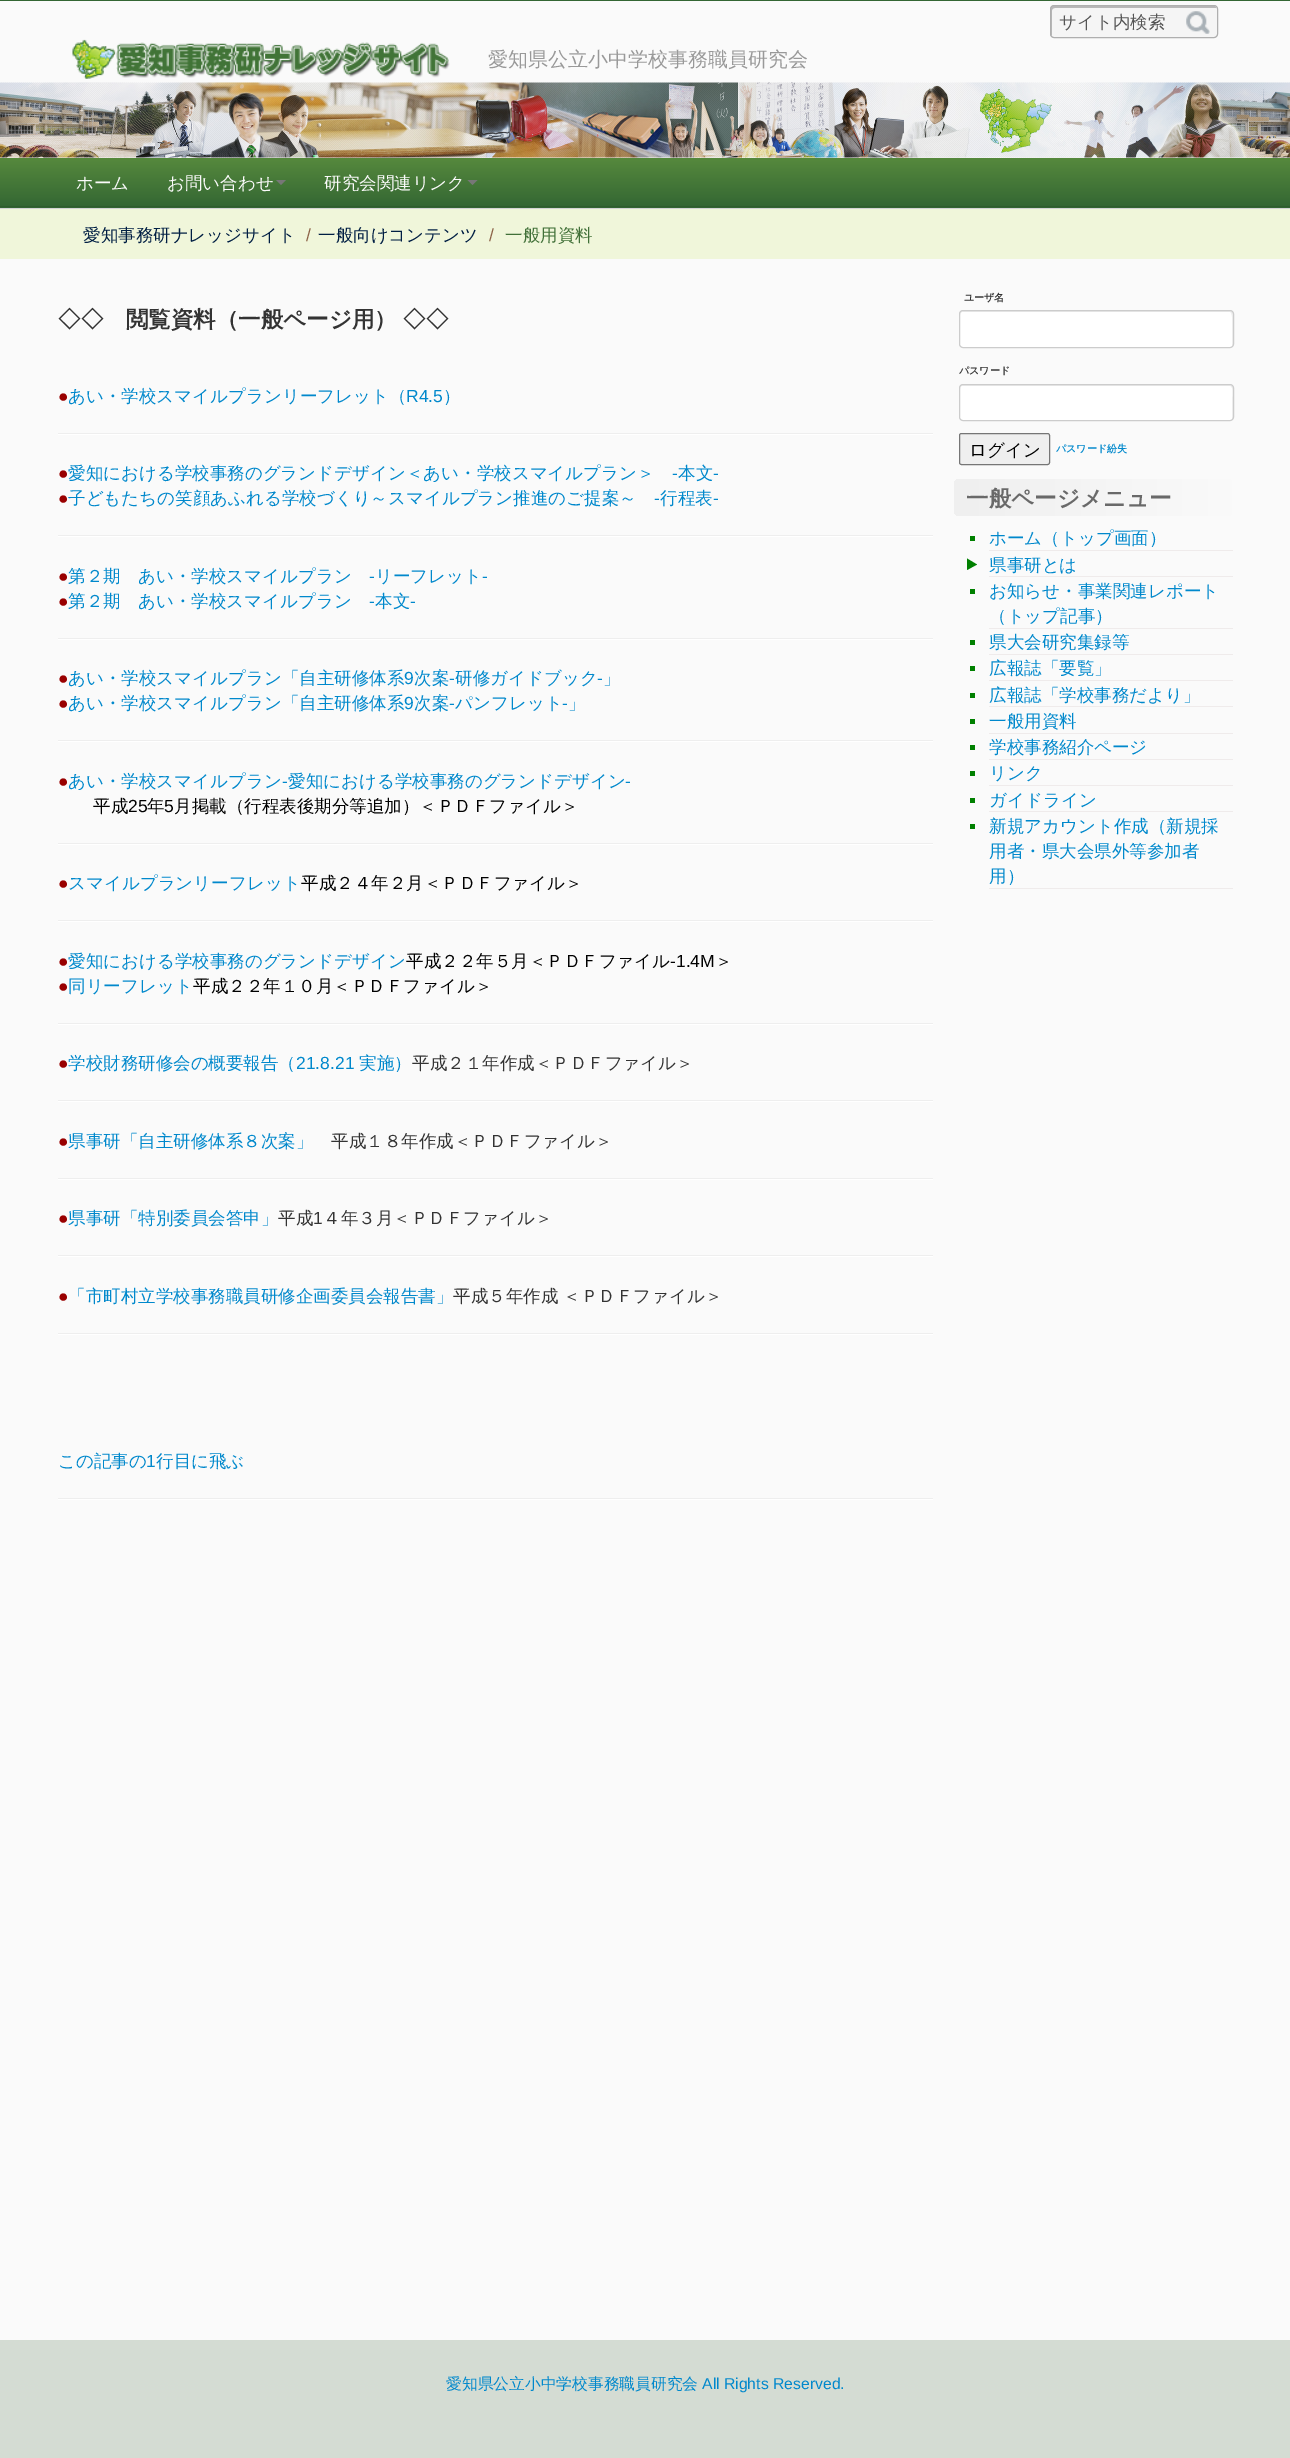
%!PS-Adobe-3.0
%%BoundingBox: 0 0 1290 2458
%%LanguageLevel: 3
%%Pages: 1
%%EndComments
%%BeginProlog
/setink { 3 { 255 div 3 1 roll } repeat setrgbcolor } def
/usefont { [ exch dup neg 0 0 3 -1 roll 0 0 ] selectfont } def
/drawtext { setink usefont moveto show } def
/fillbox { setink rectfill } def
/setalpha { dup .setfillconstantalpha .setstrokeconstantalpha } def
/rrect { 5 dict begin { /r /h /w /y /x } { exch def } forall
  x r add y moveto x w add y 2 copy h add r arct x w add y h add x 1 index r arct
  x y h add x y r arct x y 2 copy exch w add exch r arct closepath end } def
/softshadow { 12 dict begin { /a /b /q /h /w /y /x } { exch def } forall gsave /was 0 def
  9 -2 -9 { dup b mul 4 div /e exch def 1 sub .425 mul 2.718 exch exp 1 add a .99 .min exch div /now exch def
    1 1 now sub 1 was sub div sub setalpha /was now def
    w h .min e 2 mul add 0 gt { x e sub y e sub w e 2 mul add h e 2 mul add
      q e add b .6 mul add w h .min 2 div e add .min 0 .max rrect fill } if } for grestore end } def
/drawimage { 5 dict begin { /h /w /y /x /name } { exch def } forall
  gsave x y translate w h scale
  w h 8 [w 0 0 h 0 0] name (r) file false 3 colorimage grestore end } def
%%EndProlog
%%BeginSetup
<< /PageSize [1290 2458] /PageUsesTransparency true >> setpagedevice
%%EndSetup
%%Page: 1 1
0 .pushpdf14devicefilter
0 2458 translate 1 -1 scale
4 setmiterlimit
0 0 1290 2458 250 250 250 fillbox
0 0 1290 1 51 102 51 fillbox
245 245 245 setink
1050 5 168 33 4 rrect fill
184 184 184 setink
1055 8 moveto 1216 8 lineto 1216 7 1215 6 1214 6 curveto 1054 6 lineto 1052 6 1051 7 1051 8 curveto 1051 34 lineto 1051 34 1051 35 1052 36 curveto 1052 14 lineto 1052 12 1051 8 1055 8 curveto closepath fill
175 175 175 setink
1050.5 5.5 167 32 3.5 rrect stroke
(サイト内検索) 1059 28 /WenQuanYiZenHei-Medium 17.5 85 85 85 drawtext
(assets/img1.rgb) 1186 11 24 23 drawimage
(assets/img2.rgb) 72 39 378 40 drawimage
(愛知県公立小中学校事務職員研究会) 488 66 /WenQuanYiZenHei-Medium 20 153 153 153 drawtext
0 0 0 setink
0 159 1290 51 0 6 0.1 softshadow
(assets/img3.rgb) 0 82 1290 76 drawimage
gsave 0 158 moveto 1290 158 lineto 1290 208 lineto 0 208 lineto closepath clip newpath
<< /ShadingType 2 /ColorSpace /DeviceRGB /Coords [645 157 645 208] /Extend [true true] /Function << /FunctionType 2 /Domain [0 1] /C0 [0.341 0.541 0.239] /C1 [0.2 0.4 0.2] /N 1 >> >> shfill grestore
0 206 1290 1 47 93 46 fillbox
0 208 1290 1 212 212 212 fillbox
(ホーム) 76 189 /WenQuanYiZenHei-Medium 17.5 250 250 250 drawtext
(お問い合わせ) 167 189 /WenQuanYiZenHei-Medium 17.5 250 250 250 drawtext
119 119 119 setink
276 180 moveto 286 180 lineto 281 185 lineto closepath fill
(研究会関連リンク) 324 189 /WenQuanYiZenHei-Medium 17.5 250 250 250 drawtext
119 119 119 setink
467.5 180 moveto 477.5 180 lineto 472.5 185 lineto closepath fill
0 209 1290 50 240 246 218 fillbox
(愛知事務研ナレッジサイト) 83 241 /WenQuanYiZenHei-Medium 17.5 0 30 67 drawtext
(/) 306 241 /LiberationSans-Regular 17.5 141 100 73 drawtext
(一般向けコンテンツ) 318 241 /WenQuanYiZenHei-Medium 17.5 0 30 67 drawtext
(/) 489 241 /LiberationSans-Regular 17.5 141 100 73 drawtext
(一般用資料) 505 241 /WenQuanYiZenHei-Medium 17.5 65 112 56 drawtext
(◇◇　閲覧資料（一般ページ用） ◇◇) 58 327 /WenQuanYiZenHei-Bold 22.5 51 51 51 drawtext
(●) 58 402 /LiberationSans-Regular 17.5 153 0 0 drawtext
(あい・学校スマイルプランリーフレット（) 68 402 /WenQuanYiZenHei-Medium 17.5 0 136 204 drawtext
(R4.5) 406 402 /LiberationSans-Regular 17.5 0 136 204 drawtext
(）) 443 402 /WenQuanYiZenHei-Medium 17.5 0 136 204 drawtext
58 433 875 1 238 238 238 fillbox
58 434 875 1 255 255 255 fillbox
(●) 58 479 /LiberationSans-Regular 17.5 153 0 0 drawtext
(愛知における学校事務のグランドデザイン＜あい・学校スマイルプラン＞) 68 479 /WenQuanYiZenHei-Medium 17.5 0 136 204 drawtext
(-) 672 479 /LiberationSans-Regular 17.5 0 136 204 drawtext
(本文) 678 479 /WenQuanYiZenHei-Medium 17.5 0 136 204 drawtext
(-) 713 479 /LiberationSans-Regular 17.5 0 136 204 drawtext
(●) 58 504 /LiberationSans-Regular 17.5 153 0 0 drawtext
(子どもたちの笑顔あふれる学校づくり～スマイルプラン推進のご提案～) 68 504 /WenQuanYiZenHei-Medium 17.5 0 136 204 drawtext
(-) 654 504 /LiberationSans-Regular 17.5 0 136 204 drawtext
(行程表) 660 504 /WenQuanYiZenHei-Medium 17.5 0 136 204 drawtext
(-) 713 504 /LiberationSans-Regular 17.5 0 136 204 drawtext
58 535 875 1 238 238 238 fillbox
58 536 875 1 255 255 255 fillbox
(●) 58 582 /LiberationSans-Regular 17.5 153 0 0 drawtext
(第２期　あい・学校スマイルプラン) 68 582 /WenQuanYiZenHei-Medium 17.5 0 136 204 drawtext
(-) 369 582 /LiberationSans-Regular 17.5 0 136 204 drawtext
(リーフレット) 375 582 /WenQuanYiZenHei-Medium 17.5 0 136 204 drawtext
(-) 482 582 /LiberationSans-Regular 17.5 0 136 204 drawtext
(●) 58 607 /LiberationSans-Regular 17.5 153 0 0 drawtext
(第２期　あい・学校スマイルプラン) 68 607 /WenQuanYiZenHei-Medium 17.5 0 136 204 drawtext
(-) 369 607 /LiberationSans-Regular 17.5 0 136 204 drawtext
(本文) 375 607 /WenQuanYiZenHei-Medium 17.5 0 136 204 drawtext
(-) 410 607 /LiberationSans-Regular 17.5 0 136 204 drawtext
58 638 875 1 238 238 238 fillbox
58 639 875 1 255 255 255 fillbox
(●) 58 684 /LiberationSans-Regular 17.5 153 0 0 drawtext
(あい・学校スマイルプラン「自主研修体系) 68 684 /WenQuanYiZenHei-Medium 17.5 0 136 204 drawtext
(9) 404 684 /LiberationSans-Regular 17.5 0 136 204 drawtext
(次案) 414 684 /WenQuanYiZenHei-Medium 17.5 0 136 204 drawtext
(-) 449 684 /LiberationSans-Regular 17.5 0 136 204 drawtext
(研修ガイドブック) 455 684 /WenQuanYiZenHei-Medium 17.5 0 136 204 drawtext
(-) 597 684 /LiberationSans-Regular 17.5 0 136 204 drawtext
(」) 603 684 /WenQuanYiZenHei-Medium 17.5 0 136 204 drawtext
(●) 58 709 /LiberationSans-Regular 17.5 153 0 0 drawtext
(あい・学校スマイルプラン「自主研修体系) 68 709 /WenQuanYiZenHei-Medium 17.5 0 136 204 drawtext
(9) 404 709 /LiberationSans-Regular 17.5 0 136 204 drawtext
(次案) 414 709 /WenQuanYiZenHei-Medium 17.5 0 136 204 drawtext
(-) 449 709 /LiberationSans-Regular 17.5 0 136 204 drawtext
(パンフレット) 455 709 /WenQuanYiZenHei-Medium 17.5 0 136 204 drawtext
(-) 562 709 /LiberationSans-Regular 17.5 0 136 204 drawtext
(」) 568 709 /WenQuanYiZenHei-Medium 17.5 0 136 204 drawtext
58 740 875 1 238 238 238 fillbox
58 741 875 1 255 255 255 fillbox
(●) 58 787 /LiberationSans-Regular 17.5 153 0 0 drawtext
(あい・学校スマイルプラン) 68 787 /WenQuanYiZenHei-Medium 17.5 0 136 204 drawtext
(-) 282 787 /LiberationSans-Regular 17.5 0 136 204 drawtext
(愛知における学校事務のグランドデザイン) 288 787 /WenQuanYiZenHei-Medium 17.5 0 136 204 drawtext
(-) 625 787 /LiberationSans-Regular 17.5 0 136 204 drawtext
(平成) 93 812 /WenQuanYiZenHei-Medium 17.5 0 0 0 drawtext
(25) 128 812 /LiberationSans-Regular 17.5 0 0 0 drawtext
(年) 147 812 /WenQuanYiZenHei-Medium 17.5 0 0 0 drawtext
(5) 164 812 /LiberationSans-Regular 17.5 0 0 0 drawtext
(月掲載（行程表後期分等追加）＜ＰＤＦファイル＞) 174 812 /WenQuanYiZenHei-Medium 17.5 0 0 0 drawtext
58 843 875 1 238 238 238 fillbox
58 844 875 1 255 255 255 fillbox
(●) 58 889 /LiberationSans-Regular 17.5 153 0 0 drawtext
(スマイルプランリーフレット) 68 889 /WenQuanYiZenHei-Medium 17.5 0 136 204 drawtext
(平成２４年２月＜ＰＤＦファイル＞) 301 889 /WenQuanYiZenHei-Medium 17.5 0 0 0 drawtext
58 920 875 1 238 238 238 fillbox
58 921 875 1 255 255 255 fillbox
(●) 58 967 /LiberationSans-Regular 17.5 153 0 0 drawtext
(愛知における学校事務のグランドデザイン) 68 967 /WenQuanYiZenHei-Medium 17.5 0 136 204 drawtext
(平成２２年５月＜ＰＤＦファイル) 406 967 /WenQuanYiZenHei-Medium 17.5 0 0 0 drawtext
(-1.4M) 670 967 /LiberationSans-Regular 17.5 0 0 0 drawtext
(＞) 715 967 /WenQuanYiZenHei-Medium 17.5 0 0 0 drawtext
(●) 58 992 /LiberationSans-Regular 17.5 153 0 0 drawtext
(同リーフレット) 68 992 /WenQuanYiZenHei-Medium 17.5 0 136 204 drawtext
(平成２２年１０月＜ＰＤＦファイル＞) 193 992 /WenQuanYiZenHei-Medium 17.5 0 0 0 drawtext
58 1023 875 1 238 238 238 fillbox
58 1024 875 1 255 255 255 fillbox
(●) 58 1069 /LiberationSans-Regular 17.5 153 0 0 drawtext
(学校財務研修会の概要報告（) 68 1069 /WenQuanYiZenHei-Medium 17.5 0 136 204 drawtext
(21.8.21) 296 1069 /LiberationSans-Regular 17.5 0 136 204 drawtext
(実施）) 359 1069 /WenQuanYiZenHei-Medium 17.5 0 136 204 drawtext
(平成２１年作成＜ＰＤＦファイル＞) 412 1069 /WenQuanYiZenHei-Medium 17.5 51 51 51 drawtext
58 1100 875 1 238 238 238 fillbox
58 1101 875 1 255 255 255 fillbox
(●) 58 1147 /LiberationSans-Regular 17.5 153 0 0 drawtext
(県事研「自主研修体系８次案」) 68 1147 /WenQuanYiZenHei-Medium 17.5 0 136 204 drawtext
(平成１８年作成＜ＰＤＦファイル＞) 331 1147 /WenQuanYiZenHei-Medium 17.5 51 51 51 drawtext
58 1178 875 1 238 238 238 fillbox
58 1179 875 1 255 255 255 fillbox
(●) 58 1224 /LiberationSans-Regular 17.5 153 0 0 drawtext
(県事研「特別委員会答申」) 68 1224 /WenQuanYiZenHei-Medium 17.5 0 136 204 drawtext
(平成) 278 1224 /WenQuanYiZenHei-Medium 17.5 51 51 51 drawtext
(1) 313 1224 /LiberationSans-Regular 17.5 51 51 51 drawtext
(４年３月＜ＰＤＦファイル＞) 323 1224 /WenQuanYiZenHei-Medium 17.5 51 51 51 drawtext
58 1255 875 1 238 238 238 fillbox
58 1256 875 1 255 255 255 fillbox
(●) 58 1302 /LiberationSans-Regular 17.5 153 0 0 drawtext
(「市町村立学校事務職員研修企画委員会報告書」) 68 1302 /WenQuanYiZenHei-Medium 17.5 0 136 204 drawtext
(平成５年作成 ＜ＰＤＦファイル＞) 453 1302 /WenQuanYiZenHei-Medium 17.5 51 51 51 drawtext
58 1333 875 1 238 238 238 fillbox
58 1334 875 1 255 255 255 fillbox
(この記事の) 58 1467 /WenQuanYiZenHei-Medium 17.5 0 136 204 drawtext
(1) 146 1467 /LiberationSans-Regular 17.5 0 136 204 drawtext
(行目に飛ぶ) 156 1467 /WenQuanYiZenHei-Medium 17.5 0 136 204 drawtext
58 1498 875 1 238 238 238 fillbox
58 1499 875 1 255 255 255 fillbox
(ユーザ名) 964 301 /WenQuanYiZenHei-Bold 10 51 51 51 drawtext
255 255 255 setink
959 310 275 38 4 rrect fill
236 236 236 setink
962 312 moveto 1230 312 lineto 1233 312 1232 324 1232 325 curveto 1232 346 lineto 1233 345 1233 344 1233 344 curveto 1233 314 lineto 1233 312 1232 311 1230 311 curveto 962 311 lineto 961 311 960 312 960 314 curveto 960 315 lineto 960 314 961 312 962 312 curveto closepath fill
204 204 204 setink
959.5 310.5 274 37 3.5 rrect stroke
(パスワード) 959 374 /WenQuanYiZenHei-Bold 10 51 51 51 drawtext
255 255 255 setink
959 384 275 37 4 rrect fill
236 236 236 setink
962 386 moveto 1230 386 lineto 1234 386 1232 398 1232 399 curveto 1232 420 lineto 1233 419 1233 418 1233 418 curveto 1233 388 lineto 1233 386 1232 385 1230 385 curveto 962 385 lineto 961 385 960 386 960 388 curveto 960 389 lineto 960 387 961 386 962 386 curveto closepath fill
204 204 204 setink
959.5 384.5 274 36 3.5 rrect stroke
239 239 239 setink
959.5 433.5 90 31 2 rrect gsave fill grestore
118 118 118 setink
stroke
(ログイン) 969 456 /WenQuanYiZenHei-Medium 17.5 0 0 0 drawtext
(パスワード紛失) 1056 452 /WenQuanYiZenHei-Bold 10 0 136 204 drawtext
gsave 954 479 279 37 6 rrect clip newpath
<< /ShadingType 2 /ColorSpace /DeviceRGB /Coords [954 498 1233 498] /Extend [true true] /Function << /FunctionType 2 /Domain [0 1] /C0 [0.937 0.937 0.937] /C1 [0.98 0.98 0.98] /N 1 >> >> shfill grestore
(一般ページメニュー) 966 506 /WenQuanYiZenHei-Bold 22.5 105 105 105 drawtext
989 550 244 1 239 235 235 fillbox
970 536 5 5 0 128 0 fillbox
(ホーム（トップ画面）) 989 544 /WenQuanYiZenHei-Medium 17.5 0 136 204 drawtext
989 576 244 1 239 235 235 fillbox
0 128 0 setink
967 558.5 moveto 977 564.5 lineto 967 570 lineto closepath fill
(県事研とは) 989 571 /WenQuanYiZenHei-Medium 17.5 0 136 204 drawtext
989 628 244 1 239 235 235 fillbox
970 589 5 5 0 128 0 fillbox
(お知らせ・事業関連レポート) 989 597 /WenQuanYiZenHei-Medium 17.5 0 136 204 drawtext
(（トップ記事）) 989 622 /WenQuanYiZenHei-Medium 17.5 0 136 204 drawtext
989 654 244 1 239 235 235 fillbox
970 640 5 5 0 128 0 fillbox
(県大会研究集録等) 989 648 /WenQuanYiZenHei-Medium 17.5 0 136 204 drawtext
989 680 244 1 239 235 235 fillbox
970 666 5 5 0 128 0 fillbox
(広報誌「要覧」) 989 674 /WenQuanYiZenHei-Medium 17.5 0 136 204 drawtext
989 706 244 1 239 235 235 fillbox
970 693 5 5 0 128 0 fillbox
(広報誌「学校事務だより」) 989 701 /WenQuanYiZenHei-Medium 17.5 0 136 204 drawtext
989 733 244 1 239 235 235 fillbox
970 719 5 5 0 128 0 fillbox
(一般用資料) 989 727 /WenQuanYiZenHei-Medium 17.5 0 136 204 drawtext
989 759 244 1 239 235 235 fillbox
970 745 5 5 0 128 0 fillbox
(学校事務紹介ページ) 989 753 /WenQuanYiZenHei-Medium 17.5 0 136 204 drawtext
989 785 244 1 239 235 235 fillbox
970 771 5 5 0 128 0 fillbox
(リンク) 989 779 /WenQuanYiZenHei-Medium 17.5 0 136 204 drawtext
989 811 244 1 239 235 235 fillbox
970 798 5 5 0 128 0 fillbox
(ガイドライン) 989 806 /WenQuanYiZenHei-Medium 17.5 0 136 204 drawtext
989 888 244 1 239 235 235 fillbox
970 824 5 5 0 128 0 fillbox
(新規アカウント作成（新規採) 989 832 /WenQuanYiZenHei-Medium 17.5 0 136 204 drawtext
(用者・県大会県外等参加者) 989 857 /WenQuanYiZenHei-Medium 17.5 0 136 204 drawtext
(用）) 989 882 /WenQuanYiZenHei-Medium 17.5 0 136 204 drawtext
0 2340 1290 118 212 220 211 fillbox
(愛知県公立小中学校事務職員研究会) 446 2389 /WenQuanYiZenHei-Medium 15.75 0 136 204 drawtext
(All Rights Reserved.) 702 2389 /LiberationSans-Regular 15.75 0 136 204 drawtext
.poppdf14devicefilter showpage
%%EOF
